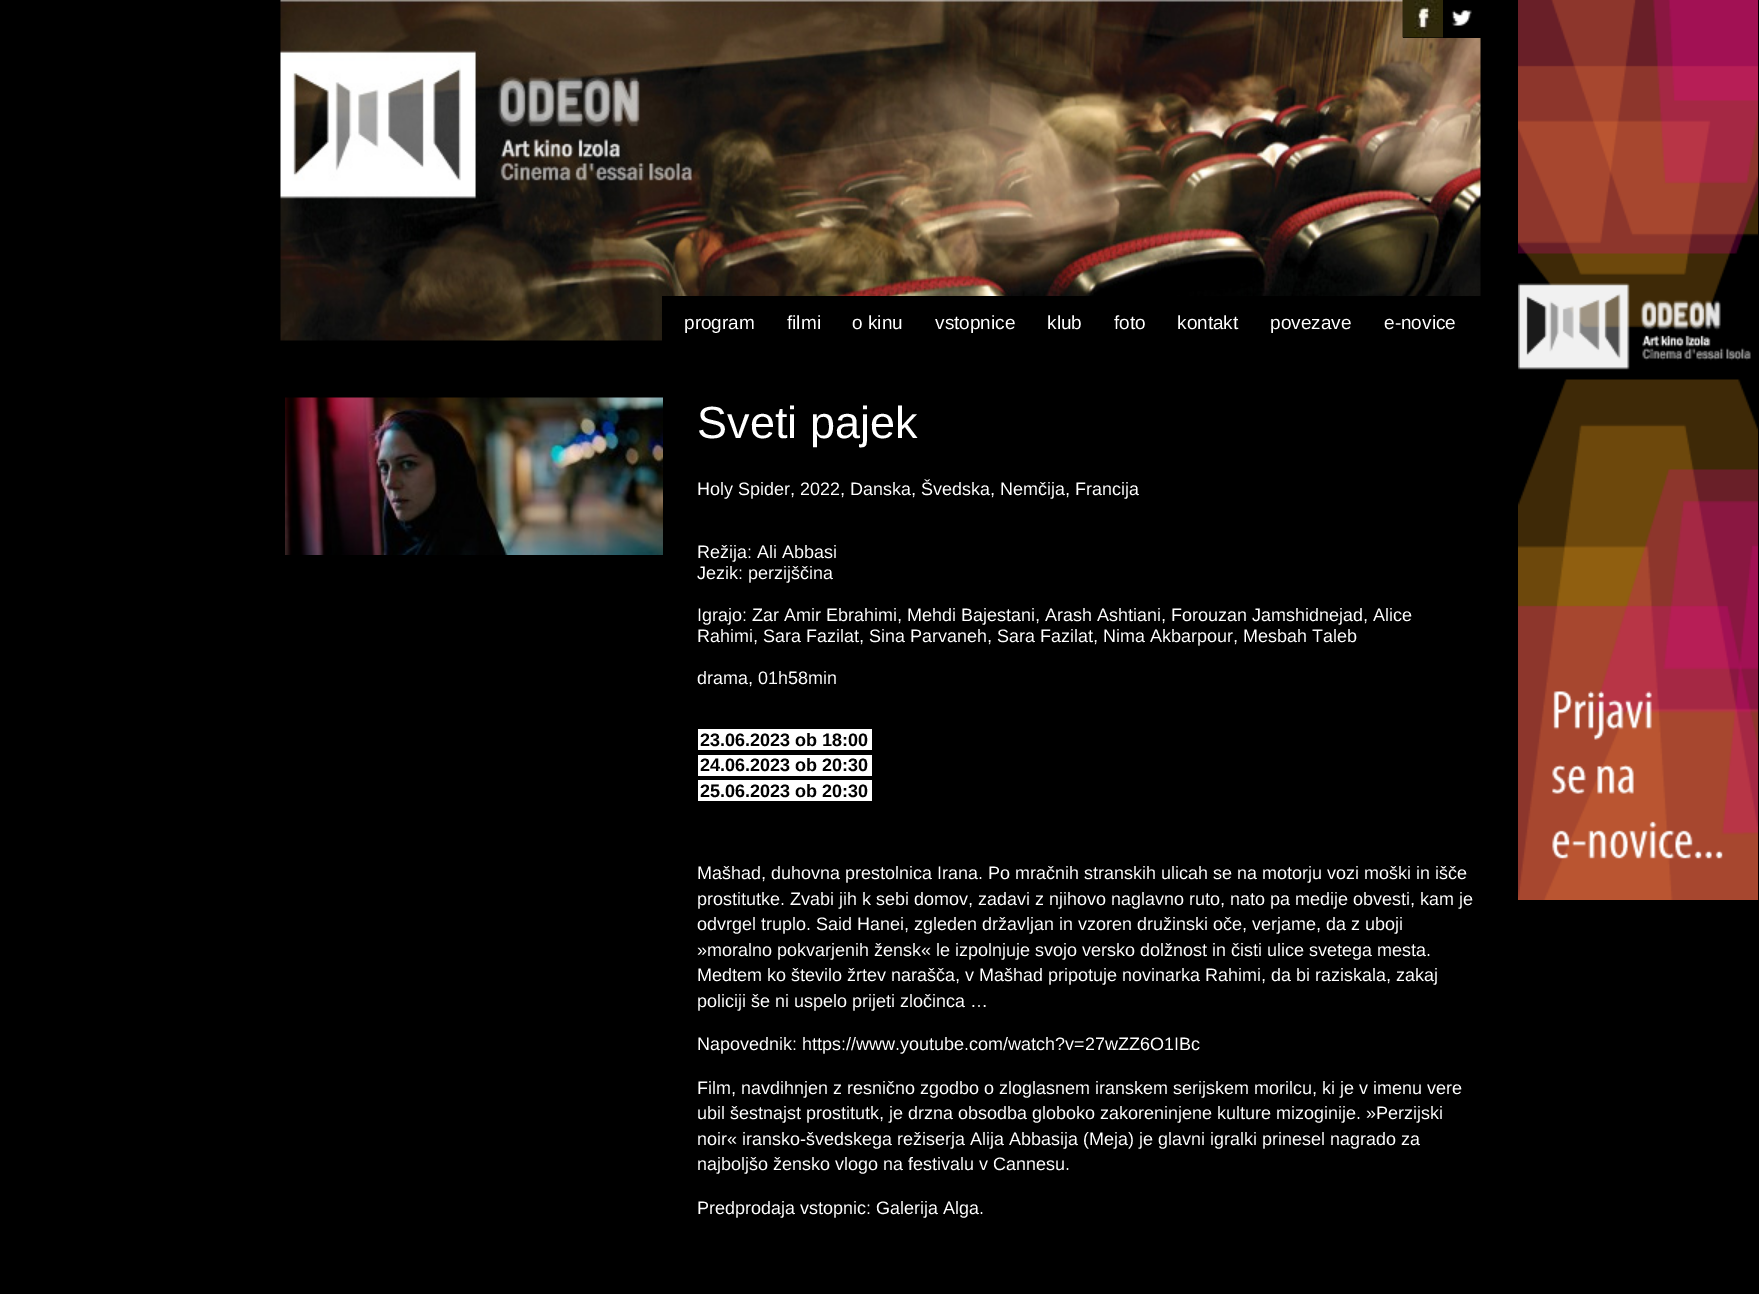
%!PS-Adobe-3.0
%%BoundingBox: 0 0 1759 1294
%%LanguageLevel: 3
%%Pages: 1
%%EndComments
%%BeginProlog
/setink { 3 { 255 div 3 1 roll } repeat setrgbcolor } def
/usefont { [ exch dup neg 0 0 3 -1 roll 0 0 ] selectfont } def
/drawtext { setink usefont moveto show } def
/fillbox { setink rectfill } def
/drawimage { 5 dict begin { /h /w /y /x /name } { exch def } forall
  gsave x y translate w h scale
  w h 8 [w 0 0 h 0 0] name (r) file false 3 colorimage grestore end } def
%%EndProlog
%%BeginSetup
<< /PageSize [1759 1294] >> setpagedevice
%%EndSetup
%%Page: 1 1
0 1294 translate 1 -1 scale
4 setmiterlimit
0 0 1759 1294 0 0 0 fillbox
(assets/img1.rgb) 280 0 1201 341 drawimage
1403 0 78 38 0 0 0 fillbox
(assets/img2.rgb) 1402 0 41 38 drawimage
(assets/img3.rgb) 1451 10 21 16 drawimage
662 296 819 45 0 0 0 fillbox
(program) 684 329 /LiberationSans-Regular 19 255 255 255 drawtext
(filmi) 787 329 /LiberationSans-Regular 19 255 255 255 drawtext
(o kinu) 852 329 /LiberationSans-Regular 19 255 255 255 drawtext
(vstopnice) 935 329 /LiberationSans-Regular 19 255 255 255 drawtext
(klub) 1047 329 /LiberationSans-Regular 19 255 255 255 drawtext
(foto) 1114 329 /LiberationSans-Regular 19 255 255 255 drawtext
(kontakt) 1177 329 /LiberationSans-Regular 19 255 255 255 drawtext
(povezave) 1270 329 /LiberationSans-Regular 19 255 255 255 drawtext
(e-novice) 1384 329 /LiberationSans-Regular 19 255 255 255 drawtext
(assets/img4.rgb) 285 397 378 158 drawimage
(Sveti pajek) 697 438 /LiberationSans-Regular 45 255 255 255 drawtext
(Holy Spider, 2022, Danska, Švedska, Nemčija, Francija) 697 495 /LiberationSans-Regular 18 255 255 255 drawtext
(Režija: Ali Abbasi) 697 558 /LiberationSans-Regular 18 255 255 255 drawtext
(Jezik: perzijščina) 697 579 /LiberationSans-Regular 18 255 255 255 drawtext
(Igrajo: Zar Amir Ebrahimi, Mehdi Bajestani, Arash Ashtiani, Forouzan Jamshidnejad, Alice) 697 621 /LiberationSans-Regular 18 255 255 255 drawtext
(Rahimi, Sara Fazilat, Sina Parvaneh, Sara Fazilat, Nima Akbarpour, Mesbah Taleb) 697 642 /LiberationSans-Regular 18 255 255 255 drawtext
(drama, 01h58min) 697 684 /LiberationSans-Regular 18 255 255 255 drawtext
698 729 174 21 255 255 255 fillbox
(23.06.2023 ob 18:00) 700 746 /LiberationSans-Bold 18 0 0 0 drawtext
698 755 174 21 255 255 255 fillbox
(24.06.2023 ob 20:30) 700 771 /LiberationSans-Bold 18 0 0 0 drawtext
698 780 174 21 255 255 255 fillbox
(25.06.2023 ob 20:30) 700 797 /LiberationSans-Bold 18 0 0 0 drawtext
(Mašhad, duhovna prestolnica Irana. Po mračnih stranskih ulicah se na motorju vozi moški in išče) 697 879 /LiberationSans-Regular 18 255 255 255 drawtext
(prostitutke. Zvabi jih k sebi domov, zadavi z njihovo naglavno ruto, nato pa medije obvesti, kam je) 697 905 /LiberationSans-Regular 18 255 255 255 drawtext
(odvrgel truplo. Said Hanei, zgleden državljan in vzoren družinski oče, verjame, da z uboji) 697 930 /LiberationSans-Regular 18 255 255 255 drawtext
(»moralno pokvarjenih žensk« le izpolnjuje svojo versko dolžnost in čisti ulice svetega mesta.) 697 956 /LiberationSans-Regular 18 255 255 255 drawtext
(Medtem ko število žrtev narašča, v Mašhad pripotuje novinarka Rahimi, da bi raziskala, zakaj) 697 981 /LiberationSans-Regular 18 255 255 255 drawtext
(policiji še ni uspelo prijeti zločinca …) 697 1007 /LiberationSans-Regular 18 255 255 255 drawtext
(Napovednik: https://www.youtube.com/watch?v=27wZZ6O1IBc) 697 1050 /LiberationSans-Regular 18 255 255 255 drawtext
(Film, navdihnjen z resnično zgodbo o zloglasnem iranskem serijskem morilcu, ki je v imenu vere) 697 1094 /LiberationSans-Regular 18 255 255 255 drawtext
(ubil šestnajst prostitutk, je drzna obsodba globoko zakoreninjene kulture mizoginije. »Perzijski) 697 1119 /LiberationSans-Regular 18 255 255 255 drawtext
(noir« iransko-švedskega režiserja Alija Abbasija \(Meja\) je glavni igralki prinesel nagrado za) 697 1145 /LiberationSans-Regular 18 255 255 255 drawtext
(najboljšo žensko vlogo na festivalu v Cannesu.) 697 1170 /LiberationSans-Regular 18 255 255 255 drawtext
(Predprodaja vstopnic: Galerija Alga.) 697 1214 /LiberationSans-Regular 18 255 255 255 drawtext
(assets/img5.rgb) 1518 0 240 900 drawimage
showpage
%%EOF
